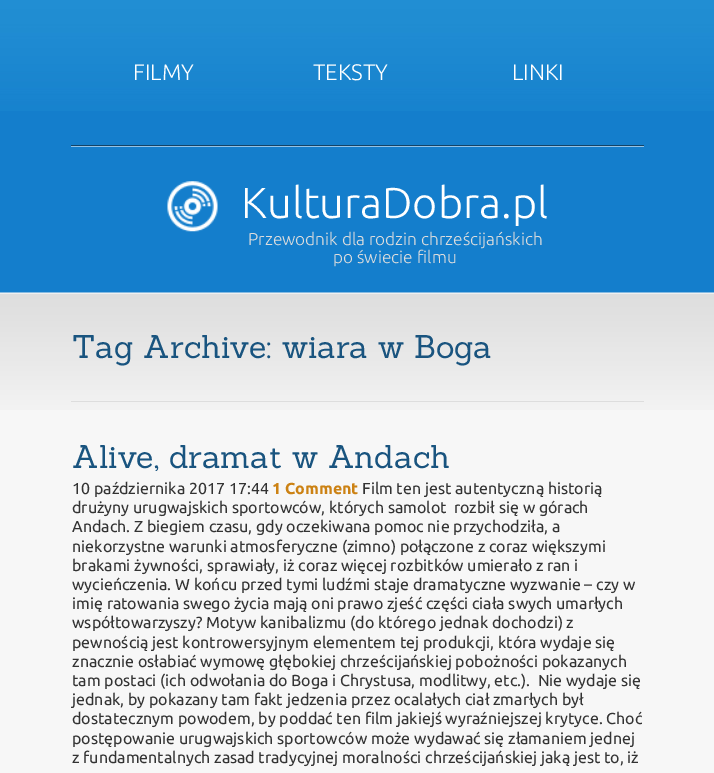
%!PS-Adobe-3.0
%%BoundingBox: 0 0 714 773
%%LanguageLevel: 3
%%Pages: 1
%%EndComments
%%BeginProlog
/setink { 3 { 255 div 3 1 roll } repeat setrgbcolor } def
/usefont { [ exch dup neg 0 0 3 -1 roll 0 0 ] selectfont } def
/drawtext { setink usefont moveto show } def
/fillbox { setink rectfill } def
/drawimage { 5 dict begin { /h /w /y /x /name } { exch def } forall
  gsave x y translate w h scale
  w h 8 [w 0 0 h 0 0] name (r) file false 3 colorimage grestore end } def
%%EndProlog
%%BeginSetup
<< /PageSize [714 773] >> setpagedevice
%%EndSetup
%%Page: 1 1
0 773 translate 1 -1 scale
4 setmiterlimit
0 0 714 773 247 247 247 fillbox
0 111 714 182 20 126 204 fillbox
(assets/img1.rgb) 0 0 714 111 drawimage
71 145 573 1 20 67 102 fillbox
(FILMY) 133 80 /Ubuntu-Light 22.5 255 255 255 drawtext
(TEKSTY) 313 80 /Ubuntu-Light 22.5 255 255 255 drawtext
(LINKI) 512 80 /Ubuntu-Light 22.5 255 255 255 drawtext
71 146 573 1 148 195 230 fillbox
(assets/img2.rgb) 167 181 51 51 drawimage
(KulturaDobra.pl) 241 218 /Ubuntu-Light 43.25 255 255 255 drawtext
(Przewodnik dla rodzin chrześcijańskich) 248 245 /Ubuntu-Light 17.25 221 221 221 drawtext
(po świecie filmu) 333 263 /Ubuntu-Light 17.25 221 221 221 drawtext
(assets/img3.rgb) 0 292 714 118 drawimage
71 401 573 1 221 221 221 fillbox
(Tag Archive: wiara w Boga) 72 358 /Sanchez-Regular 32 25 84 127 drawtext
(Alive, dramat w Andach) 72 468 /Sanchez-Regular 32 25 84 127 drawtext
(10 października 2017 17:44) 72 494 /Ubuntu-Regular 16 51 51 51 drawtext
(1 Comment) 272 494 /Ubuntu-Bold 16 204 130 20 drawtext
(Film ten jest autentyczną historią) 362 494 /Ubuntu-Regular 16 51 51 51 drawtext
(drużyny urugwajskich sportowców, których samolot  rozbił się w górach) 72 513 /Ubuntu-Regular 16 51 51 51 drawtext
(Andach. Z biegiem czasu, gdy oczekiwana pomoc nie przychodziła, a) 72 532 /Ubuntu-Regular 16 51 51 51 drawtext
(niekorzystne warunki atmosferyczne \(zimno\) połączone z coraz większymi) 72 552 /Ubuntu-Regular 16 51 51 51 drawtext
(brakami żywności, sprawiały, iż coraz więcej rozbitków umierało z ran i) 72 571 /Ubuntu-Regular 16 51 51 51 drawtext
(wycieńczenia. W końcu przed tymi ludźmi staje dramatyczne wyzwanie – czy w) 72 590 /Ubuntu-Regular 16 51 51 51 drawtext
(imię ratowania swego życia mają oni prawo zjeść części ciała swych umarłych) 72 609 /Ubuntu-Regular 16 51 51 51 drawtext
(współtowarzyszy? Motyw kanibalizmu \(do którego jednak dochodzi\) z) 72 628 /Ubuntu-Regular 16 51 51 51 drawtext
(pewnością jest kontrowersyjnym elementem tej produkcji, która wydaje się) 72 648 /Ubuntu-Regular 16 51 51 51 drawtext
(znacznie osłabiać wymowę głębokiej chrześcijańskiej pobożności pokazanych) 72 667 /Ubuntu-Regular 16 51 51 51 drawtext
(tam postaci \(ich odwołania do Boga i Chrystusa, modlitwy, etc.\).  Nie wydaje się) 72 686 /Ubuntu-Regular 16 51 51 51 drawtext
(jednak, by pokazany tam fakt jedzenia przez ocalałych ciał zmarłych był) 72 705 /Ubuntu-Regular 16 51 51 51 drawtext
(dostatecznym powodem, by poddać ten film jakiejś wyraźniejszej krytyce. Choć) 72 724 /Ubuntu-Regular 16 51 51 51 drawtext
(postępowanie urugwajskich sportowców może wydawać się złamaniem jednej) 72 744 /Ubuntu-Regular 16 51 51 51 drawtext
(z fundamentalnych zasad tradycyjnej moralności chrześcijańskiej jaką jest to, iż) 72 763 /Ubuntu-Regular 16 51 51 51 drawtext
showpage
%%EOF
